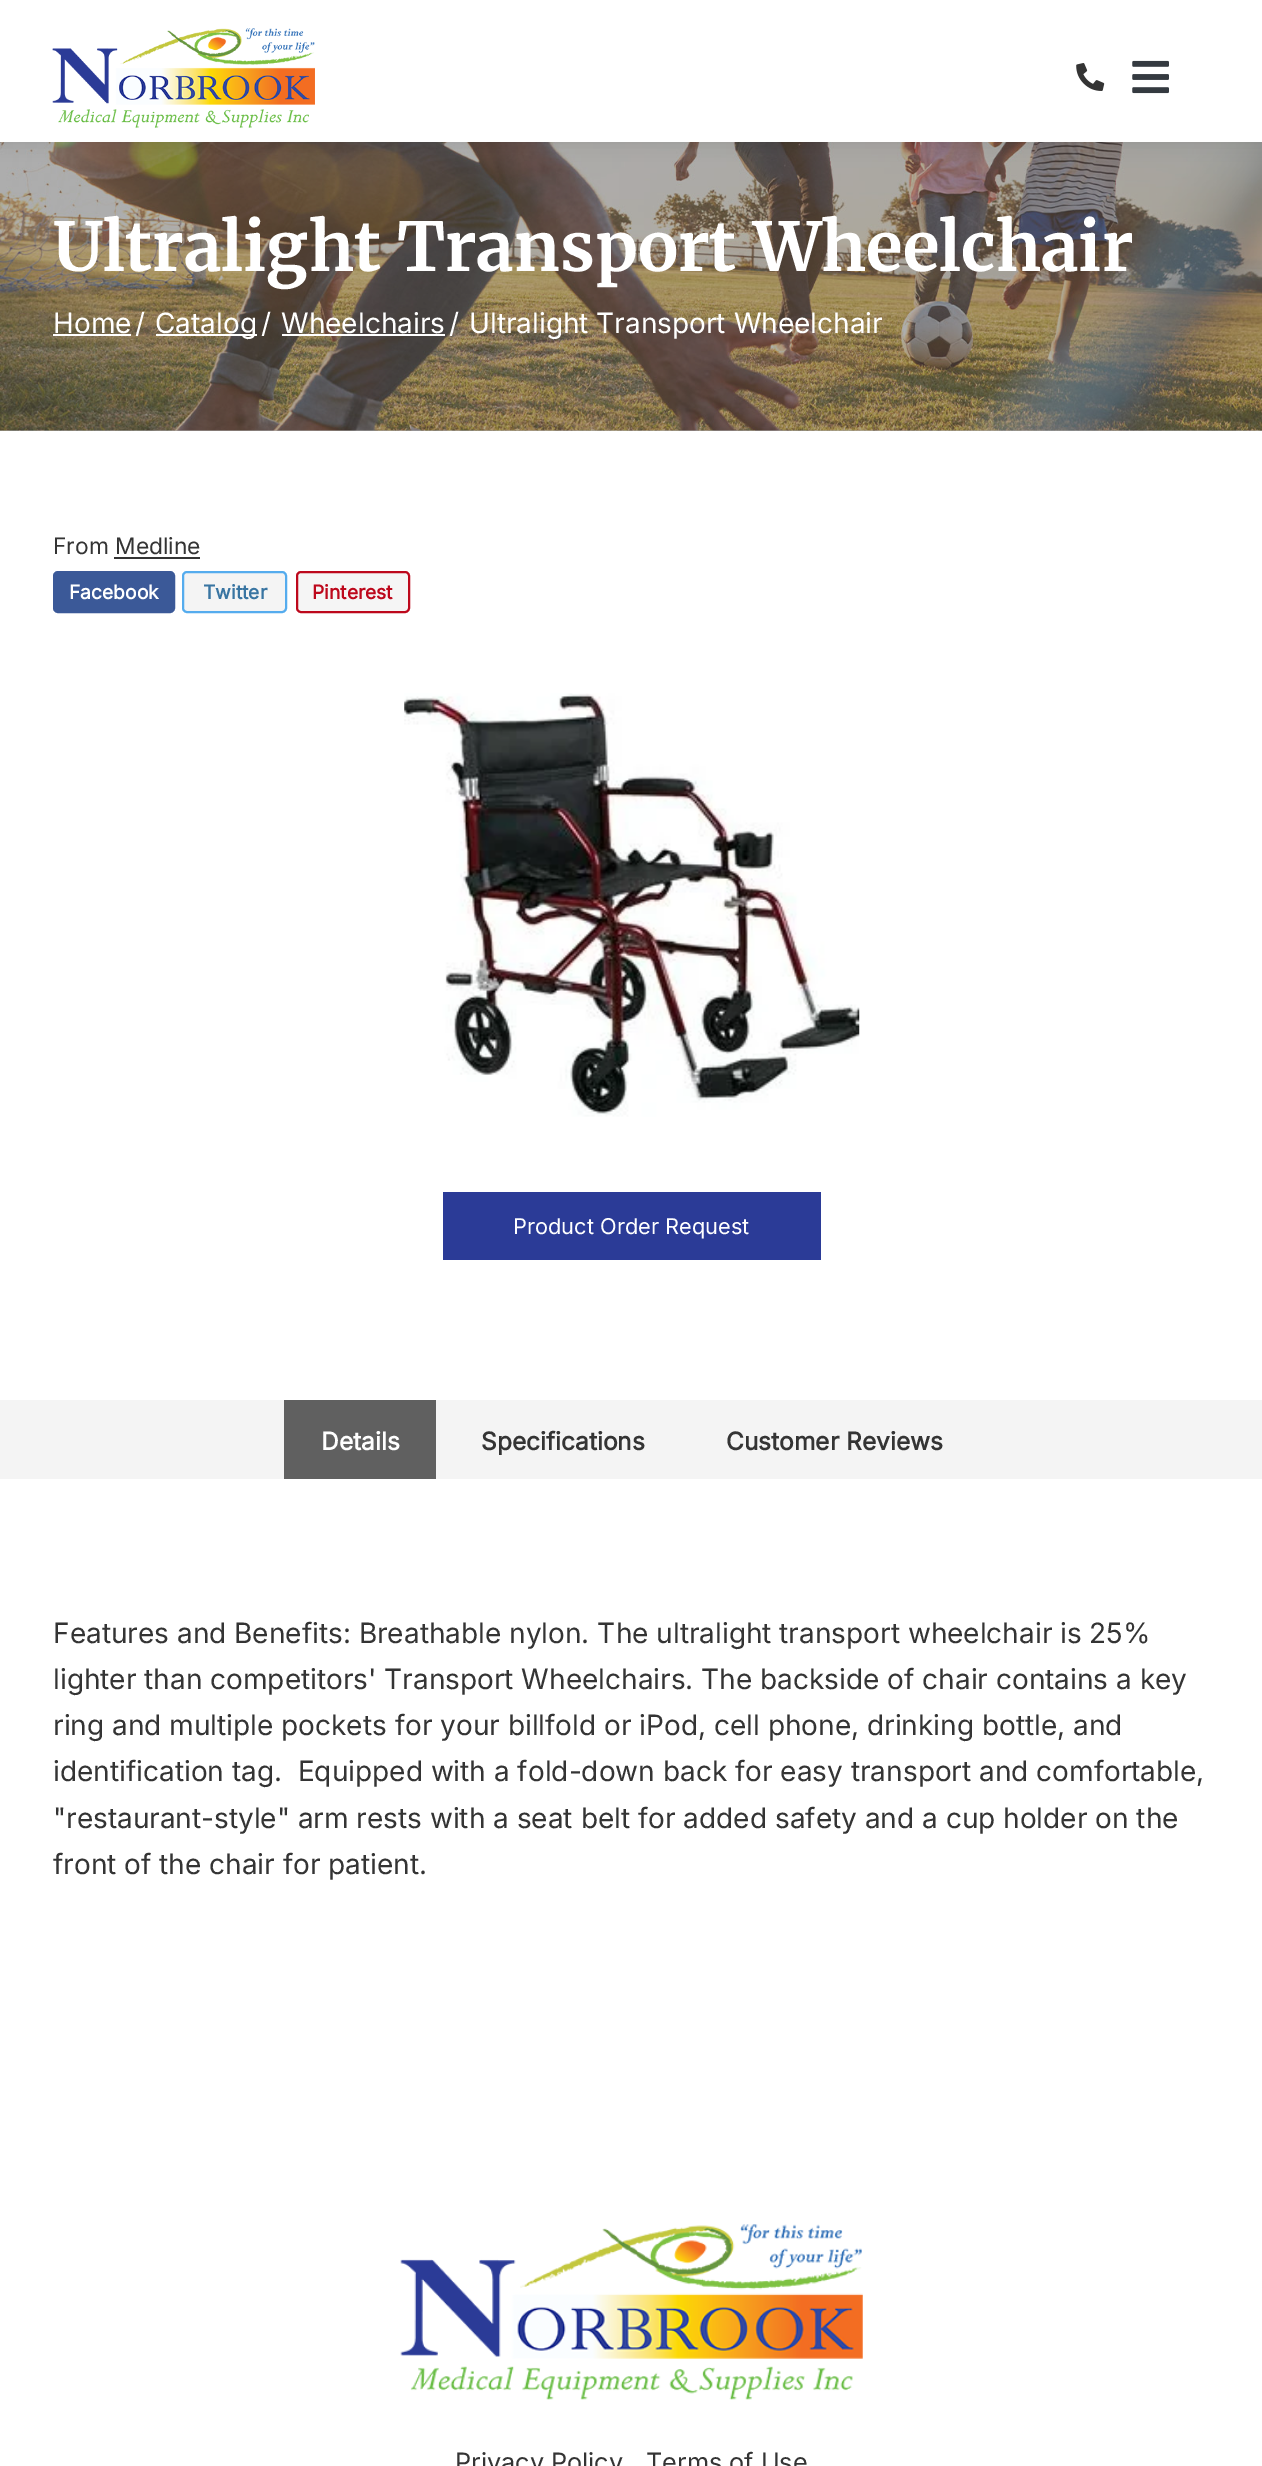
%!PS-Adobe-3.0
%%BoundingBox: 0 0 1262 2466
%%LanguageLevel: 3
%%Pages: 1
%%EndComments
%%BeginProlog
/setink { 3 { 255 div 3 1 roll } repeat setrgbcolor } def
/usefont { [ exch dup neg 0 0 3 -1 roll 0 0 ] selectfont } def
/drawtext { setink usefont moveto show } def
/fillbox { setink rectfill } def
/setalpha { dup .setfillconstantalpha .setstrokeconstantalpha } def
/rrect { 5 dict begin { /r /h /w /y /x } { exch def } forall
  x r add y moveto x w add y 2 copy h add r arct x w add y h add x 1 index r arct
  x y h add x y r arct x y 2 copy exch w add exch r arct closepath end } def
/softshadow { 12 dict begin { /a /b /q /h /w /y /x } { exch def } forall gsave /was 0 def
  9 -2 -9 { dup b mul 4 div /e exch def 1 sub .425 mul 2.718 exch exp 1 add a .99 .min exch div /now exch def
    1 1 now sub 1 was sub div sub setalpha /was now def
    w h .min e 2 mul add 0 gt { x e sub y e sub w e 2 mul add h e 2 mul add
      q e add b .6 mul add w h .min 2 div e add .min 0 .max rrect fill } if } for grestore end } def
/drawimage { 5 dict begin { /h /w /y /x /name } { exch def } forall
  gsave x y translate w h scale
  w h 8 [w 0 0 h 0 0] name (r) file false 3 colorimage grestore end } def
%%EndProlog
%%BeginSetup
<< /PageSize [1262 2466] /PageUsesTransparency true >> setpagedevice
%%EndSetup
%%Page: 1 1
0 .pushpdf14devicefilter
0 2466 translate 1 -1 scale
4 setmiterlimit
0 0 1262 2466 255 255 255 fillbox
0 430 1262 1 172 172 172 fillbox
(assets/img4.rgb) 0 142 1262 289 drawimage
0 0 0 setink
0 0 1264 142 0 9 0.1 softshadow
0 0 1262 142 255 255 255 fillbox
(assets/img1.rgb) 52 28 263 100 drawimage
(assets/img2.rgb) 1076 63 29 28 drawimage
(assets/img3.rgb) 1132 60 37 34 drawimage
(Ultralight Transport Wheelchair) 53 271 /Merriweather-Light 67.5 255 255 255 drawtext
(Home) 53 333 /Inter-Regular 28 255 255 255 drawtext
53 334 78 2 255 255 255 fillbox
(/) 135 333 /Inter-Regular 28 255 255 255 drawtext
156 334 101 2 255 255 255 fillbox
(Catalog) 155 333 /Inter-Regular 28 255 255 255 drawtext
(/) 261 333 /Inter-Regular 28 255 255 255 drawtext
(Wheelchairs) 281 333 /Inter-Regular 28 255 255 255 drawtext
282 334 163 2 255 255 255 fillbox
(/) 449 333 /Inter-Regular 28 255 255 255 drawtext
(Ultralight Transport Wheelchair) 469 333 /Inter-Regular 28 255 255 255 drawtext
(From Medline) 53 554 /Inter-Regular 22.75 52 52 52 drawtext
114 557 86 2 52 52 52 fillbox
59 89 152 setink
54 572 120 40 4 rrect gsave fill grestore
2 setlinewidth
stroke
(Facebook) 69 599 /Inter-Bold 19.25 255 255 255 drawtext
244 244 244 setink
183 572 103 40 4 rrect gsave fill grestore
85 172 238 setink
stroke
(Twitter) 203 599 /Inter-Bold 19.25 57 117 162 drawtext
245 245 245 setink
297 572 112 40 4 rrect gsave fill grestore
189 8 28 setink
stroke
(Pinterest) 312 599 /Inter-Bold 19.25 189 8 28 drawtext
(assets/img5.rgb) 404 693 456 424 drawimage
443 1192 378 68 43 59 151 fillbox
(Product Order Request) 513 1234 /Inter-Regular 21.75 255 255 255 drawtext
0 1400 1262 79 244 244 244 fillbox
284 1400 152 79 96 96 96 fillbox
(Details) 321 1450 /Inter-Bold 24.5 255 255 255 drawtext
(Specifications) 481 1450 /Inter-Bold 24.5 52 52 52 drawtext
(Customer Reviews) 726 1450 /Inter-Bold 24.5 52 52 52 drawtext
(Features and Benefits: Breathable nylon. The ultralight transport wheelchair is 25%) 53 1643 /Inter-Regular 28 52 52 52 drawtext
(lighter than competitors' Transport Wheelchairs. The backside of chair contains a key) 53 1689 /Inter-Regular 28 52 52 52 drawtext
(ring and multiple pockets for your billfold or iPod, cell phone, drinking bottle, and) 53 1735 /Inter-Regular 28 52 52 52 drawtext
(identification tag.  Equipped with a fold-down back for easy transport and comfortable,) 53 1781 /Inter-Regular 28 52 52 52 drawtext
("restaurant-style" arm rests with a seat belt for added safety and a cup holder on the) 53 1828 /Inter-Regular 28 52 52 52 drawtext
(front of the chair for patient.) 53 1874 /Inter-Regular 28 52 52 52 drawtext
(assets/img6.rgb) 400 2224 463 176 drawimage
(Privacy Policy) 455 2471 /Inter-Regular 25.25 52 52 52 drawtext
(Terms of Use) 646 2471 /Inter-Regular 25.25 52 52 52 drawtext
.poppdf14devicefilter showpage
%%EOF
